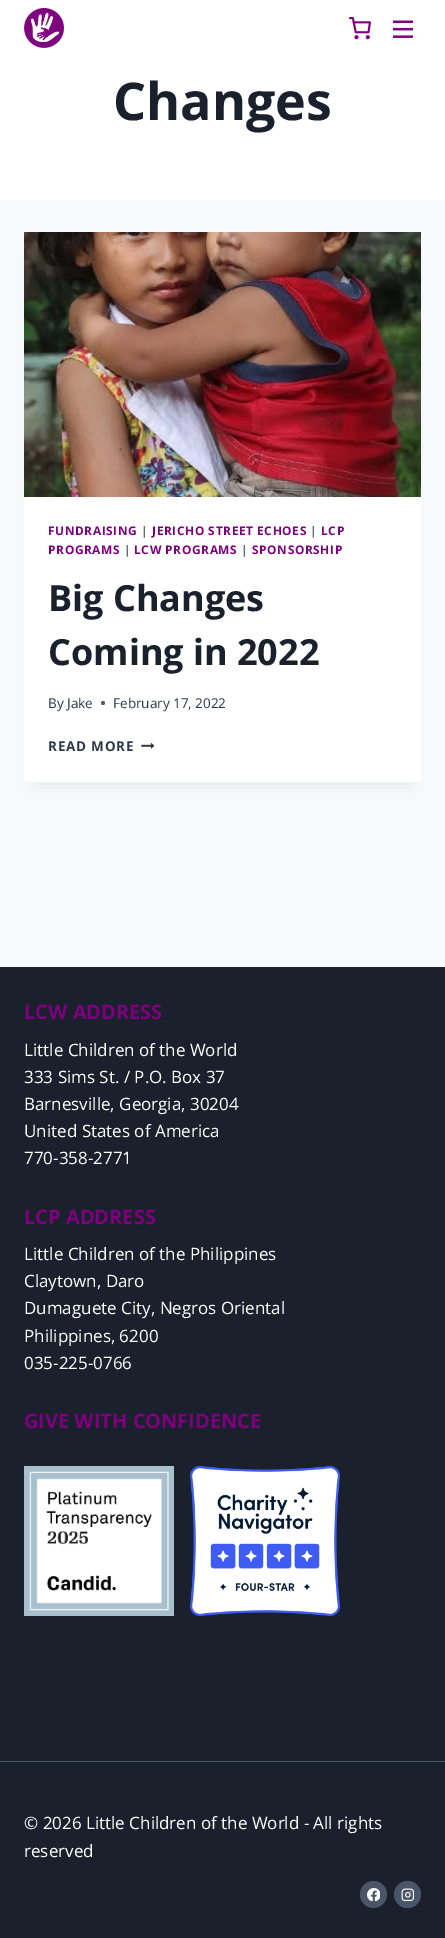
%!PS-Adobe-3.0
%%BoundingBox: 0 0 445 1938
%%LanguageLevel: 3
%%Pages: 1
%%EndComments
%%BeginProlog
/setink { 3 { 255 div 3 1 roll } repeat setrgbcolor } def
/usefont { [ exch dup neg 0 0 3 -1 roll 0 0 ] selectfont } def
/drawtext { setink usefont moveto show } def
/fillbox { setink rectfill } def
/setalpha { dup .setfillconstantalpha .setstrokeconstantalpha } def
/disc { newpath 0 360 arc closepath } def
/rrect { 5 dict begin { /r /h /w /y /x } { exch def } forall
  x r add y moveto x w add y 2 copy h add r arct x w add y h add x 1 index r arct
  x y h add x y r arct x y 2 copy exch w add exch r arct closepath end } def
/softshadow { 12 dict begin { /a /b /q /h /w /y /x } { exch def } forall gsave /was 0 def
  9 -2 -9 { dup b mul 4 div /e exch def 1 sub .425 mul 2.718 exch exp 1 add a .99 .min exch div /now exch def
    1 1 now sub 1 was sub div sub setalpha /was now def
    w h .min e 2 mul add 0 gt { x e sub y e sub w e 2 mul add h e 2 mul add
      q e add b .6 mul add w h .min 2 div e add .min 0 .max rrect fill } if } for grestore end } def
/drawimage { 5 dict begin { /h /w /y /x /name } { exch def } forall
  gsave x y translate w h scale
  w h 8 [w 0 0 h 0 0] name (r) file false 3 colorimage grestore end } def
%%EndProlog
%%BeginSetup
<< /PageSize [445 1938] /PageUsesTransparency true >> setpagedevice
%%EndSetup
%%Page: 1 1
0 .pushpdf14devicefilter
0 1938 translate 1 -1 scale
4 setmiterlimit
0 0 445 1938 247 250 252 fillbox
0 0 445 200 255 255 255 fillbox
(assets/img1.rgb) 24 8 40 40 drawimage
(assets/img2.rgb) 349 17 22 23 drawimage
(assets/img3.rgb) 393 20 20 18 drawimage
(Changes) 113 120 /OpenSans-Bold 52 26 32 44 drawtext
0 0 0 setink
34 257 377 530 0 7.5 0.05 softshadow
255 255 255 setink
24 232 397 550 4 rrect fill
(assets/img4.rgb) 24 232 397 265 drawimage
/OpenSans-Bold 11.9 usefont
126 0 126 setink
48 535 moveto 0.6 0 (FUNDRAISING) ashow
/OpenSans-Regular 11.9 usefont
45 55 72 setink
141 535 moveto 0.6 0 (|) ashow
/OpenSans-Bold 11.9 usefont
126 0 126 setink
152 535 moveto 0.6 0 (JERICHO STREET ECHOES) ashow
/OpenSans-Regular 11.9 usefont
45 55 72 setink
310 535 moveto 0.6 0 (|) ashow
/OpenSans-Bold 11.9 usefont
126 0 126 setink
321 535 moveto 0.6 0 (LCP) ashow
48 554 moveto 0.6 0 (PROGRAMS) ashow
/OpenSans-Regular 11.9 usefont
45 55 72 setink
124 554 moveto 0.6 0 (|) ashow
/OpenSans-Bold 11.9 usefont
126 0 126 setink
134 554 moveto 0.6 0 (LCW PROGRAMS) ashow
/OpenSans-Regular 11.9 usefont
45 55 72 setink
241 554 moveto 0.6 0 (|) ashow
/OpenSans-Bold 11.9 usefont
126 0 126 setink
252 554 moveto 0.6 0 (SPONSORSHIP) ashow
(Big Changes) 48 611 /OpenSans-Bold 36 26 32 44 drawtext
(Coming in 2022) 48 665 /OpenSans-Bold 36 26 32 44 drawtext
(By) 48 708 /OpenSans-Regular 13.5 45 55 72 drawtext
(Jake) 67 708 /OpenSans-Regular 13.5 45 55 72 drawtext
87 95 109 setink
103 703 2 disc fill
(February 17, 2022) 113 708 /OpenSans-Regular 13.5 45 55 72 drawtext
/OpenSans-Bold 13.5 usefont
48 751 moveto 0.75 0 (READ MORE) ashow
(assets/img5.rgb) 141 742 13 7 drawimage
0 967 445 794 26 32 44 fillbox
(LCW ADDRESS) 24 1019 /OpenSans-Bold 20 126 0 126 drawtext
(Little Children of the World) 24 1056 /OpenSans-Regular 17 255 255 255 drawtext
(333 Sims St. / P.O. Box 37) 24 1083 /OpenSans-Regular 17 255 255 255 drawtext
(Barnesville, Georgia, 30204) 24 1110 /OpenSans-Regular 17 255 255 255 drawtext
(United States of America) 24 1137 /OpenSans-Regular 17 255 255 255 drawtext
(770-358-2771) 24 1164 /OpenSans-Regular 17 255 255 255 drawtext
(LCP ADDRESS) 24 1224 /OpenSans-Bold 20 126 0 126 drawtext
(Little Children of the Philippines) 24 1260 /OpenSans-Regular 17 255 255 255 drawtext
(Claytown, Daro) 24 1287 /OpenSans-Regular 17 255 255 255 drawtext
(Dumaguete City, Negros Oriental) 24 1314 /OpenSans-Regular 17 255 255 255 drawtext
(Philippines, 6200) 24 1342 /OpenSans-Regular 17 255 255 255 drawtext
(035-225-0766) 24 1369 /OpenSans-Regular 17 255 255 255 drawtext
(GIVE WITH CONFIDENCE) 24 1428 /OpenSans-Bold 20 126 0 126 drawtext
(assets/img6.rgb) 24 1466 150 150 drawimage
(assets/img7.rgb) 190 1466 150 150 drawimage
0 1762 445 176 26 32 44 fillbox
0 1761 445 1 74 85 104 fillbox
(© 2026 Little Children of the World - All rights) 24 1829 /OpenSans-Regular 17 255 255 255 drawtext
(reserved) 24 1857 /OpenSans-Regular 17 255 255 255 drawtext
74 85 104 setink
373.5 1894.5 13.5 disc fill
(assets/img8.rgb) 367 1888 13 13 drawimage
407.5 1894.5 13.5 disc fill
(assets/img9.rgb) 401 1888 13 13 drawimage
.poppdf14devicefilter showpage
%%EOF
